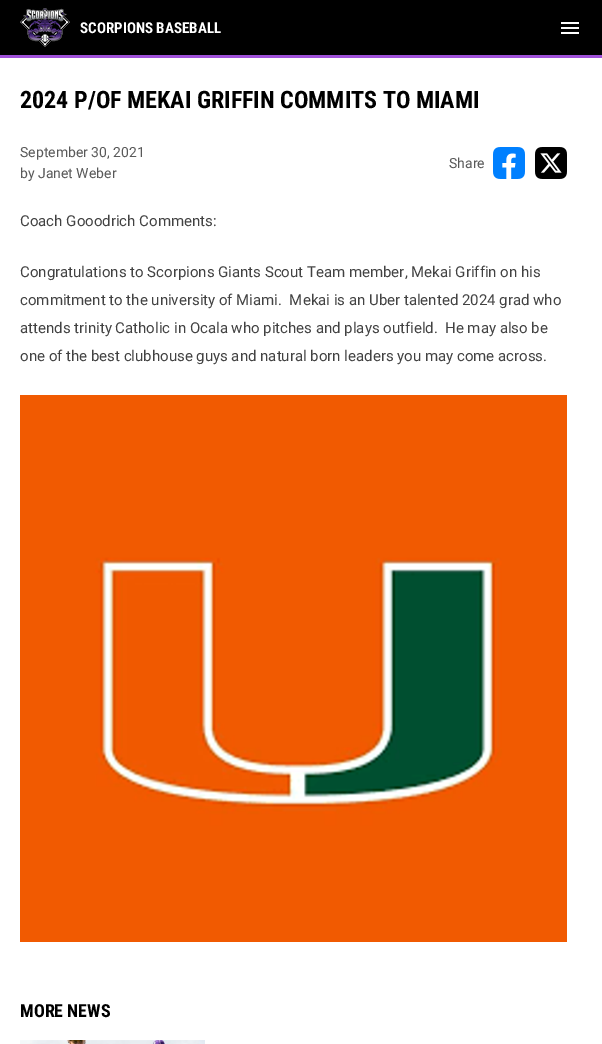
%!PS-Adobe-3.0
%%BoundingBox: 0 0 602 1044
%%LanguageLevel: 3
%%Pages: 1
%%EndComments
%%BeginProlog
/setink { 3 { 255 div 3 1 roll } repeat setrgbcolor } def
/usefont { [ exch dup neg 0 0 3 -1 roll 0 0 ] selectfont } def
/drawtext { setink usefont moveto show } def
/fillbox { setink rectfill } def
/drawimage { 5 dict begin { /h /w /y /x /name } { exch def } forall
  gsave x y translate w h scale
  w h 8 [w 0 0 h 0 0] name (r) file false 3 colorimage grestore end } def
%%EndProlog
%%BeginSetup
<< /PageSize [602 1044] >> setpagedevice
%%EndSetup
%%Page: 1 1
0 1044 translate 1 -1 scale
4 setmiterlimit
0 0 602 1044 255 255 255 fillbox
0 0 602 55 0 0 0 fillbox
(assets/img1.rgb) 20 8 50 39 drawimage
(SCORPIONS BASEBALL) 80 33 /RobotoCondensed-Bold 15 255 255 255 drawtext
(assets/img2.rgb) 561 22 18 12 drawimage
0 55 602 3 160 81 218 fillbox
(2024 P/OF MEKAI GRIFFIN COMMITS TO MIAMI) 20 108 /RobotoCondensed-Bold 24 0 0 0 drawtext
(September 30, 2021) 20 157 /Roboto-Regular 14 89 89 89 drawtext
(by Janet Weber) 20 178 /Roboto-Regular 14 89 89 89 drawtext
(Share) 449 168 /Roboto-Regular 14 89 89 89 drawtext
(assets/img3.rgb) 493 147 32 32 drawimage
(assets/img4.rgb) 535 147 32 32 drawimage
(Coach Gooodrich Comments:) 20 226 /Roboto-Regular 15 66 66 66 drawtext
(Congratulations to Scorpions Giants Scout Team member, Mekai Griffin on his) 20 277 /Roboto-Regular 15 66 66 66 drawtext
(commitment to the university of Miami.  Mekai is an Uber talented 2024 grad who) 20 305 /Roboto-Regular 15 66 66 66 drawtext
(attends trinity Catholic in Ocala who pitches and plays outfield.  He may also be) 20 333 /Roboto-Regular 15 66 66 66 drawtext
(one of the best clubhouse guys and natural born leaders you may come across.) 20 361 /Roboto-Regular 15 66 66 66 drawtext
(assets/img5.rgb) 20 395 547 547 drawimage
(MORE NEWS) 20 1017 /RobotoCondensed-Bold 18 0 0 0 drawtext
(assets/img6.rgb) 20 1040 185 4 drawimage
showpage
%%EOF
